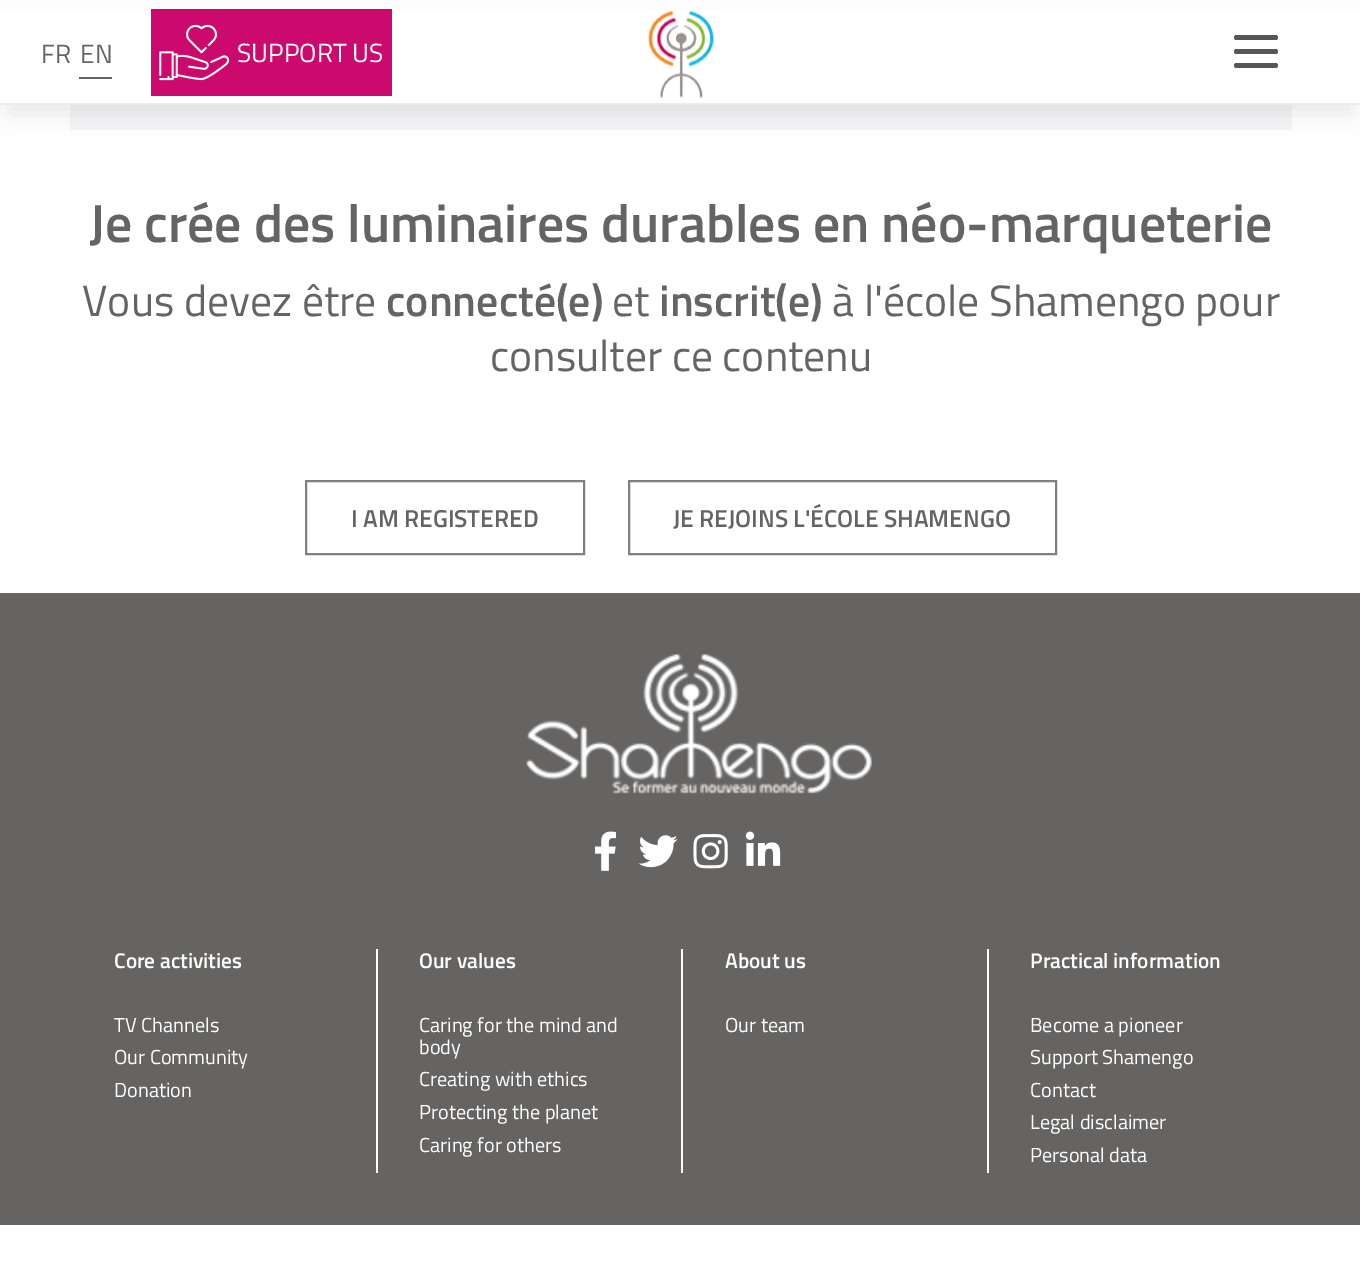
%!PS-Adobe-3.0
%%BoundingBox: 0 0 1360 1270
%%LanguageLevel: 3
%%Pages: 1
%%EndComments
%%BeginProlog
/setink { 3 { 255 div 3 1 roll } repeat setrgbcolor } def
/usefont { [ exch dup neg 0 0 3 -1 roll 0 0 ] selectfont } def
/drawtext { setink usefont moveto show } def
/fillbox { setink rectfill } def
/setalpha { dup .setfillconstantalpha .setstrokeconstantalpha } def
/rrect { 5 dict begin { /r /h /w /y /x } { exch def } forall
  x r add y moveto x w add y 2 copy h add r arct x w add y h add x 1 index r arct
  x y h add x y r arct x y 2 copy exch w add exch r arct closepath end } def
/softshadow { 12 dict begin { /a /b /q /h /w /y /x } { exch def } forall gsave /was 0 def
  9 -2 -9 { dup b mul 4 div /e exch def 1 sub .425 mul 2.718 exch exp 1 add a .99 .min exch div /now exch def
    1 1 now sub 1 was sub div sub setalpha /was now def
    w h .min e 2 mul add 0 gt { x e sub y e sub w e 2 mul add h e 2 mul add
      q e add b .6 mul add w h .min 2 div e add .min 0 .max rrect fill } if } for grestore end } def
/drawimage { 5 dict begin { /h /w /y /x /name } { exch def } forall
  gsave x y translate w h scale
  w h 8 [w 0 0 h 0 0] name (r) file false 3 colorimage grestore end } def
%%EndProlog
%%BeginSetup
<< /PageSize [1360 1270] /PageUsesTransparency true >> setpagedevice
%%EndSetup
%%Page: 1 1
0 .pushpdf14devicefilter
0 1270 translate 1 -1 scale
4 setmiterlimit
0 0 1360 1270 255 255 255 fillbox
70 105 1222 25 246 245 248 fillbox
0 0 0 setink
9 26 1344 88 0 13 0.09 softshadow
0 10 1360 93 255 255 255 fillbox
(FR) 41 63 /TitilliumWeb-Regular 26.25 101 100 98 drawtext
(EN) 80 63 /TitilliumWeb-Regular 26.25 101 100 98 drawtext
79 77 33 2 102 100 98 fillbox
151 9 241 87 204 9 108 fillbox
(assets/img1.rgb) 159 24 70 57 drawimage
(SUPPORT US) 237 62 /TitilliumWeb-Regular 26.25 255 255 255 drawtext
(assets/img2.rgb) 648 10 67 89 drawimage
0 103 1360 2 235 235 235 fillbox
86 86 86 setink
1234 49 44 5 2.5 rrect fill
1234 35 44 5 2.5 rrect fill
1234 63 44 5 2.5 rrect fill
(Je crée des luminaires durables en néo-marqueterie) 89 242 /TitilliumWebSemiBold-SemiBold 53.75 101 100 98 drawtext
(Vous devez être) 82 316 /TitilliumWeb-Regular 43.75 101 100 98 drawtext
(connecté\(e\)) 386 316 /TitilliumWebSemiBold-SemiBold 43.75 101 100 98 drawtext
(et) 612 316 /TitilliumWeb-Regular 43.75 101 100 98 drawtext
(inscrit\(e\)) 659 316 /TitilliumWebSemiBold-SemiBold 43.75 101 100 98 drawtext
(à l'école Shamengo pour) 832 316 /TitilliumWeb-Regular 43.75 101 100 98 drawtext
(consulter ce contenu) 490 371 /TitilliumWeb-Regular 43.75 101 100 98 drawtext
127 127 127 setink
2 setlinewidth
306 481 278 73 rectstroke
(I AM REGISTERED) 351 527 /TitilliumWebSemiBold-SemiBold 24.5 101 100 98 drawtext
127 127 127 setink
629 481 427 73 rectstroke
(JE REJOINS L'ÉCOLE SHAMENGO) 673 527 /TitilliumWebSemiBold-SemiBold 24.5 101 100 98 drawtext
0 593 1360 632 102 100 98 fillbox
(assets/img3.rgb) 526 654 346 140 drawimage
(assets/img4.rgb) 595 831 21 40 drawimage
(assets/img5.rgb) 638 835 40 33 drawimage
(assets/img6.rgb) 693 834 35 35 drawimage
(assets/img7.rgb) 745 831 36 35 drawimage
(Core activities) 114 968 /TitilliumWebSemiBold-SemiBold 21.25 255 255 255 drawtext
(TV Channels) 114 1032 /TitilliumWeb-Regular 20.25 255 255 255 drawtext
(Our Community) 114 1064 /TitilliumWeb-Regular 20.25 255 255 255 drawtext
(Donation) 114 1097 /TitilliumWeb-Regular 20.25 255 255 255 drawtext
376 949 2 224 255 255 255 fillbox
(Our values) 419 968 /TitilliumWebSemiBold-SemiBold 21.25 255 255 255 drawtext
(Caring for the mind and) 419 1032 /TitilliumWeb-Regular 20.25 255 255 255 drawtext
(body) 419 1054 /TitilliumWeb-Regular 20.25 255 255 255 drawtext
(Creating with ethics) 419 1086 /TitilliumWeb-Regular 20.25 255 255 255 drawtext
(Protecting the planet) 419 1119 /TitilliumWeb-Regular 20.25 255 255 255 drawtext
(Caring for others) 419 1152 /TitilliumWeb-Regular 20.25 255 255 255 drawtext
681 949 2 224 255 255 255 fillbox
(About us) 725 968 /TitilliumWebSemiBold-SemiBold 21.25 255 255 255 drawtext
(Our team) 725 1032 /TitilliumWeb-Regular 20.25 255 255 255 drawtext
987 949 2 224 255 255 255 fillbox
(Practical information) 1030 968 /TitilliumWebSemiBold-SemiBold 21.25 255 255 255 drawtext
(Become a pioneer) 1030 1032 /TitilliumWeb-Regular 20.25 255 255 255 drawtext
(Support Shamengo) 1030 1064 /TitilliumWeb-Regular 20.25 255 255 255 drawtext
(Contact) 1030 1097 /TitilliumWeb-Regular 20.25 255 255 255 drawtext
(Legal disclaimer) 1030 1129 /TitilliumWeb-Regular 20.25 255 255 255 drawtext
(Personal data) 1030 1162 /TitilliumWeb-Regular 20.25 255 255 255 drawtext
.poppdf14devicefilter showpage
%%EOF
